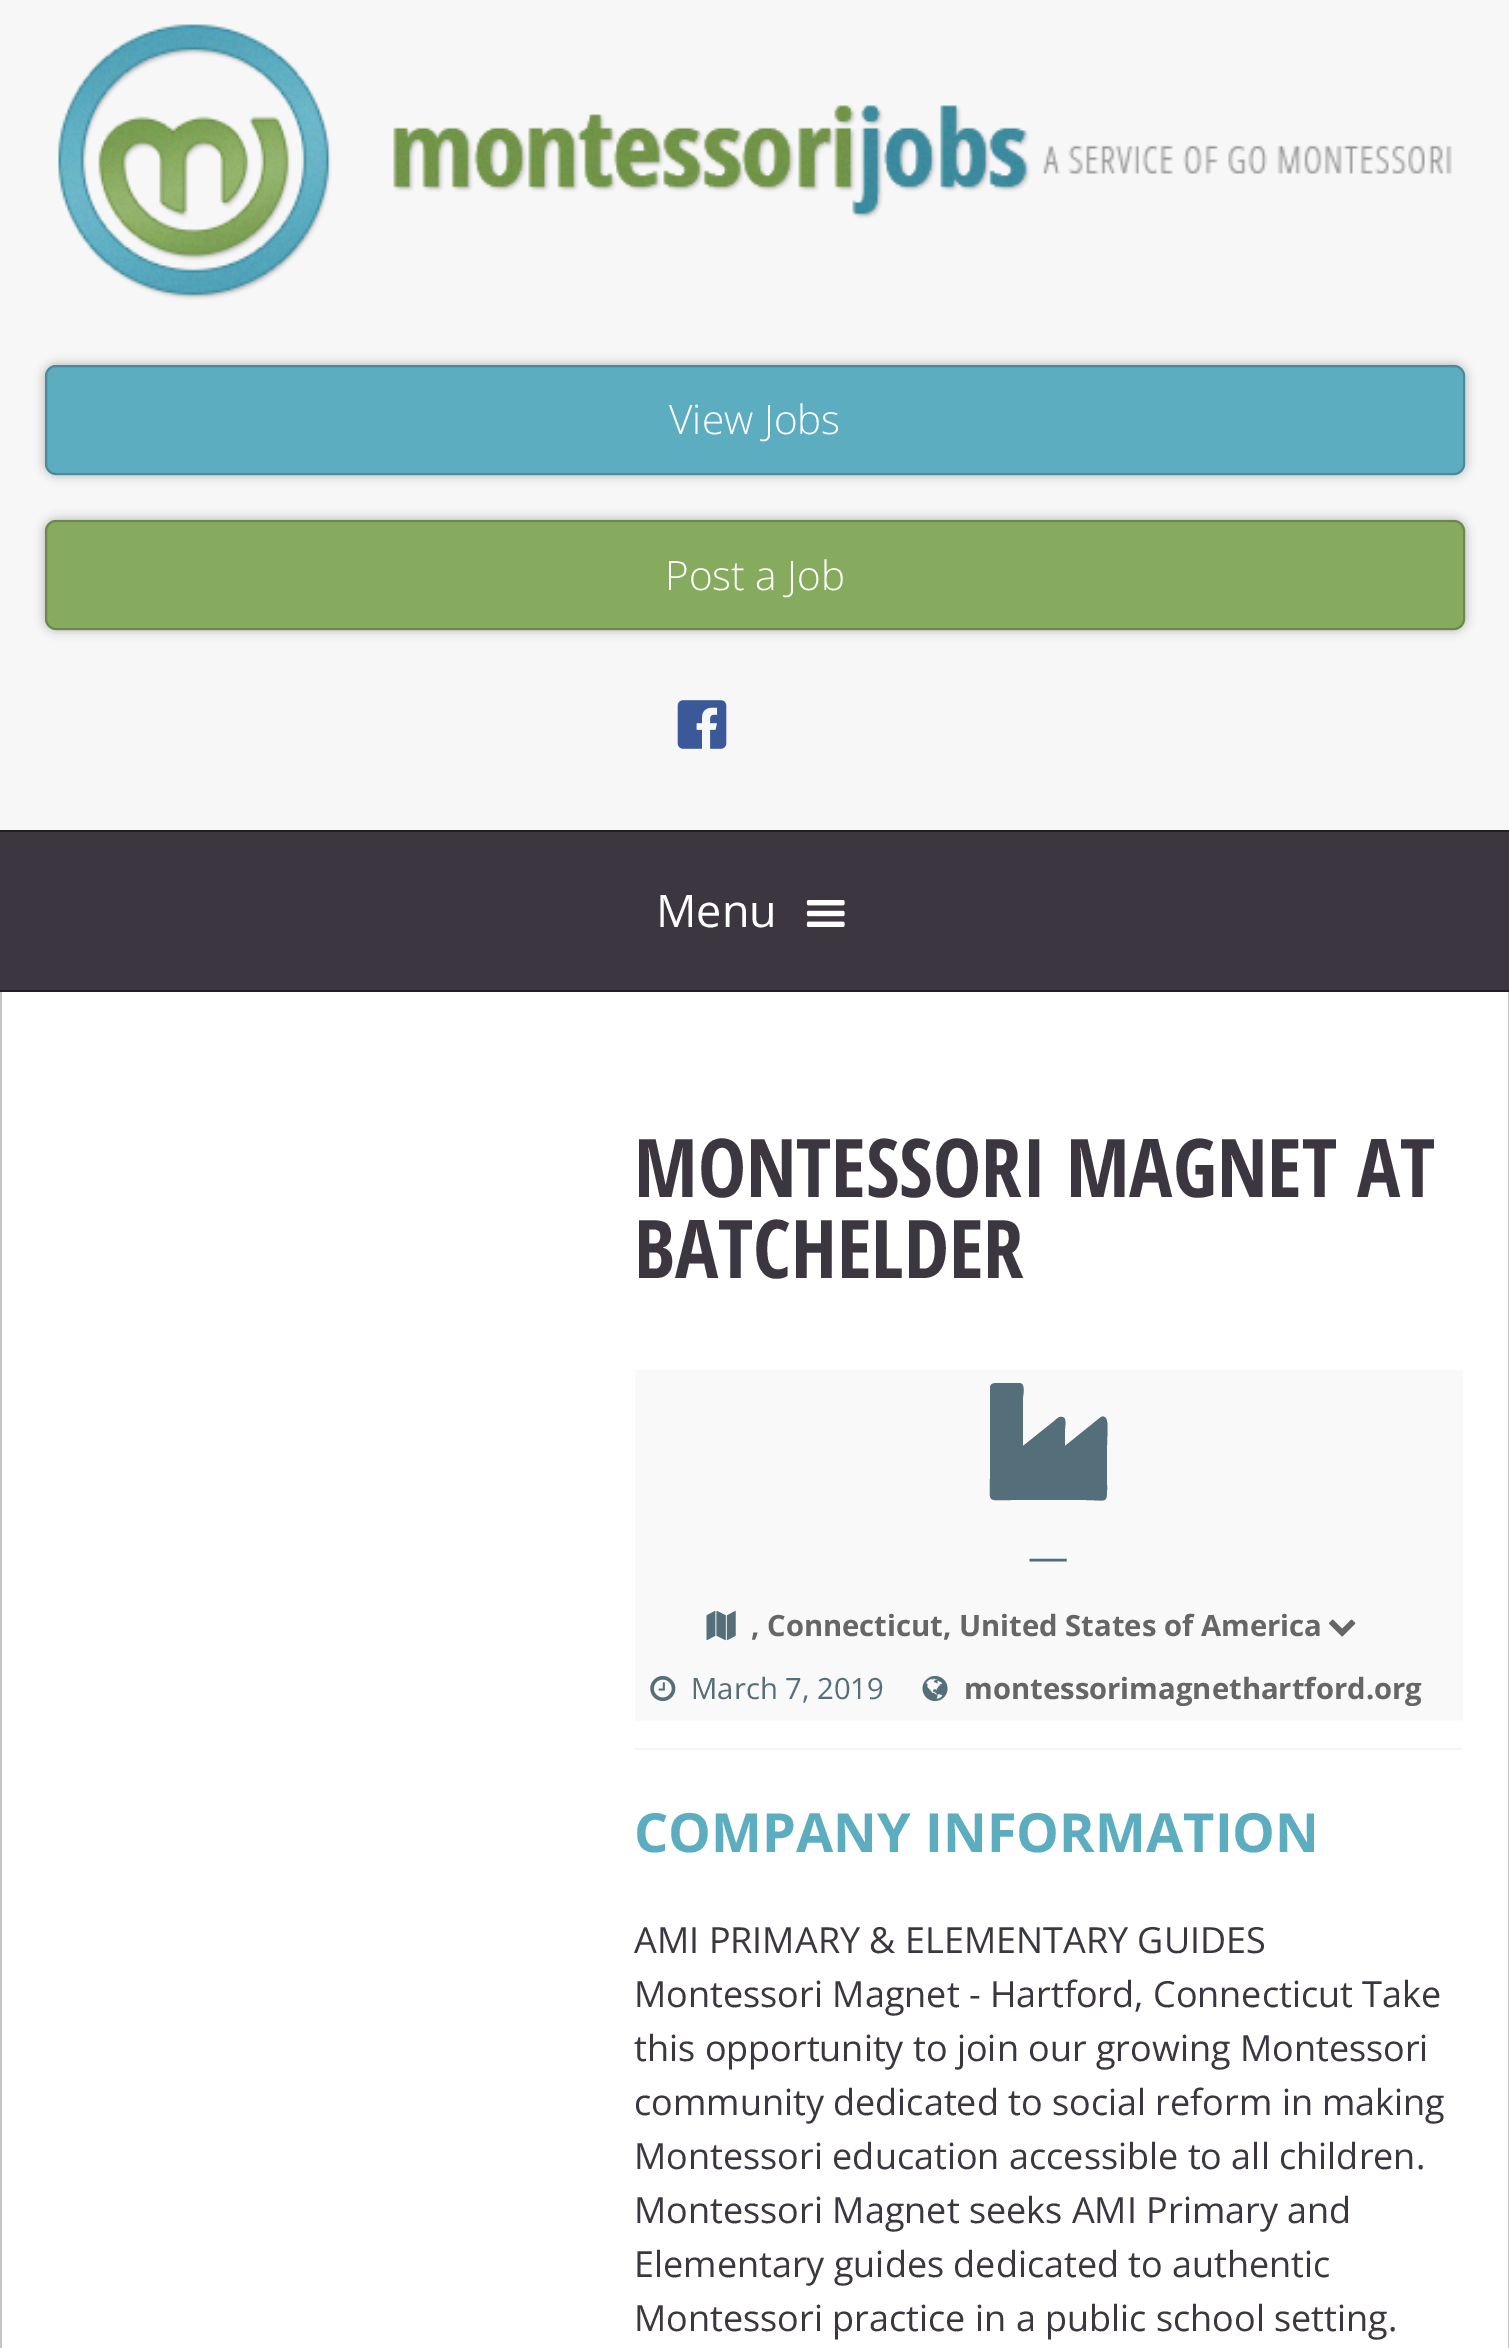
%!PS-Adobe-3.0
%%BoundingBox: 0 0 1509 2348
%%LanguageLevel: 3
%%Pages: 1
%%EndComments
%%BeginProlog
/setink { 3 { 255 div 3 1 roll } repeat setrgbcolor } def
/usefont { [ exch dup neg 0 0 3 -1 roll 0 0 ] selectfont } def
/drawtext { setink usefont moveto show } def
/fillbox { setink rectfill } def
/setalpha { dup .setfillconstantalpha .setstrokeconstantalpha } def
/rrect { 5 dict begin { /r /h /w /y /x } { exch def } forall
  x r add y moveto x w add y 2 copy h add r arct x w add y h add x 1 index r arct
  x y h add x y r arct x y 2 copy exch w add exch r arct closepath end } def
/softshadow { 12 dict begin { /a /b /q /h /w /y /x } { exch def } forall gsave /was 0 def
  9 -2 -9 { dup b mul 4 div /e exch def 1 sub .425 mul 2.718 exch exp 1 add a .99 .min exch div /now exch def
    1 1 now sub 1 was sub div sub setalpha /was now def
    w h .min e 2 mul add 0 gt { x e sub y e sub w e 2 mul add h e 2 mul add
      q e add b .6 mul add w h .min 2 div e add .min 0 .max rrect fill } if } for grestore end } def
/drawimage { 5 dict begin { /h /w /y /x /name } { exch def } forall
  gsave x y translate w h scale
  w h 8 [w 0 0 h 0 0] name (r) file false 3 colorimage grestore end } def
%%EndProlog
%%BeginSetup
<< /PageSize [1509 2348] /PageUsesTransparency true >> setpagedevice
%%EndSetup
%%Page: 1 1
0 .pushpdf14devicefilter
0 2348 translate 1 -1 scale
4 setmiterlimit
0 0 1509 2348 247 247 247 fillbox
(assets/img1.rgb) 58 24 1394 276 drawimage
0 0 0 setink
45 365 1420 110 11 5.5 0.3 softshadow
93 173 193 setink
45 365 1420 110 11 rrect fill
0.2 setalpha
0 0 0 setink
2 setlinewidth
46 366 1418 108 10 rrect stroke
1 setalpha
(View Jobs) 669 434 /OpenSans-Light 40.5 255 255 255 drawtext
0 0 0 setink
45 520 1420 110 11 5.5 0.3 softshadow
135 171 94 setink
45 520 1420 110 11 rrect fill
0.2 setalpha
0 0 0 setink
46 521 1418 108 10 rrect stroke
1 setalpha
(Post a Job) 665 590 /OpenSans-Light 40.5 255 255 255 drawtext
(assets/img2.rgb) 677 700 50 49 drawimage
0 832 1509 158 60 54 64 fillbox
0 830 1509 2 34 31 36 fillbox
0 990 1509 2 34 31 36 fillbox
(Menu) 656 927 /OpenSans-Regular 45 255 255 255 drawtext
(assets/img3.rgb) 806 900 39 27 drawimage
2 992 1506 1356 255 255 255 fillbox
1508 992 1 1356 201 194 198 fillbox
0 992 2 1356 201 194 198 fillbox
(MONTESSORI MAGNET AT) 634 1197 /OpenSansCondensed-Bold 81 60 54 64 drawtext
(BATCHELDER) 634 1278 /OpenSansCondensed-Bold 81 60 54 64 drawtext
635 1370 828 351 249 249 249 fillbox
84 110 122 setink
1019 1383 moveto 1026 1383 1023 1395 1023 1397 curveto 1023 1446 lineto 1053 1422 lineto 1055 1421 1058 1416 1062 1417 curveto 1067 1417 1065 1426 1065 1429 curveto 1065 1446 lineto 1101 1417 lineto 1110 1414 1107 1430 1107 1446 curveto 1107 1484 lineto 1107 1505 1108 1500 1085 1500 curveto 1012 1500 lineto 986 1500 990 1504 990 1478 curveto 990 1388 lineto 990 1383 995 1383 998 1383 curveto closepath fill
(—) 1028 1571 /OpenSans-Regular 40.5 84 110 122 drawtext
(assets/img4.rgb) 706 1610 30 31 drawimage
(, Connecticut, United States of America) 751 1636 /OpenSans-Bold 29.25 102 102 102 drawtext
(assets/img5.rgb) 1329 1619 27 18 drawimage
(assets/img6.rgb) 650 1676 26 26 drawimage
(March 7, 2019) 691 1699 /OpenSans-Regular 29.25 84 110 122 drawtext
(assets/img7.rgb) 922 1676 26 26 drawimage
(montessorimagnethartford.org) 964 1699 /OpenSans-Bold 29.25 102 102 102 drawtext
635 1748 828 2 245 245 245 fillbox
(COMPANY INFORMATION) 634 1852 /OpenSans-Bold 54 93 173 193 drawtext
(AMI PRIMARY & ELEMENTARY GUIDES) 634 1953 /OpenSans-Regular 36 60 54 64 drawtext
(Montessori Magnet - Hartford, Connecticut Take) 634 2007 /OpenSans-Regular 36 60 54 64 drawtext
(this opportunity to join our growing Montessori) 634 2061 /OpenSans-Regular 36 60 54 64 drawtext
(community dedicated to social reform in making) 634 2115 /OpenSans-Regular 36 60 54 64 drawtext
(Montessori education accessible to all children.) 634 2169 /OpenSans-Regular 36 60 54 64 drawtext
(Montessori Magnet seeks AMI Primary and) 634 2223 /OpenSans-Regular 36 60 54 64 drawtext
(Elementary guides dedicated to authentic) 634 2277 /OpenSans-Regular 36 60 54 64 drawtext
(Montessori practice in a public school setting.) 634 2331 /OpenSans-Regular 36 60 54 64 drawtext
.poppdf14devicefilter showpage
%%EOF
